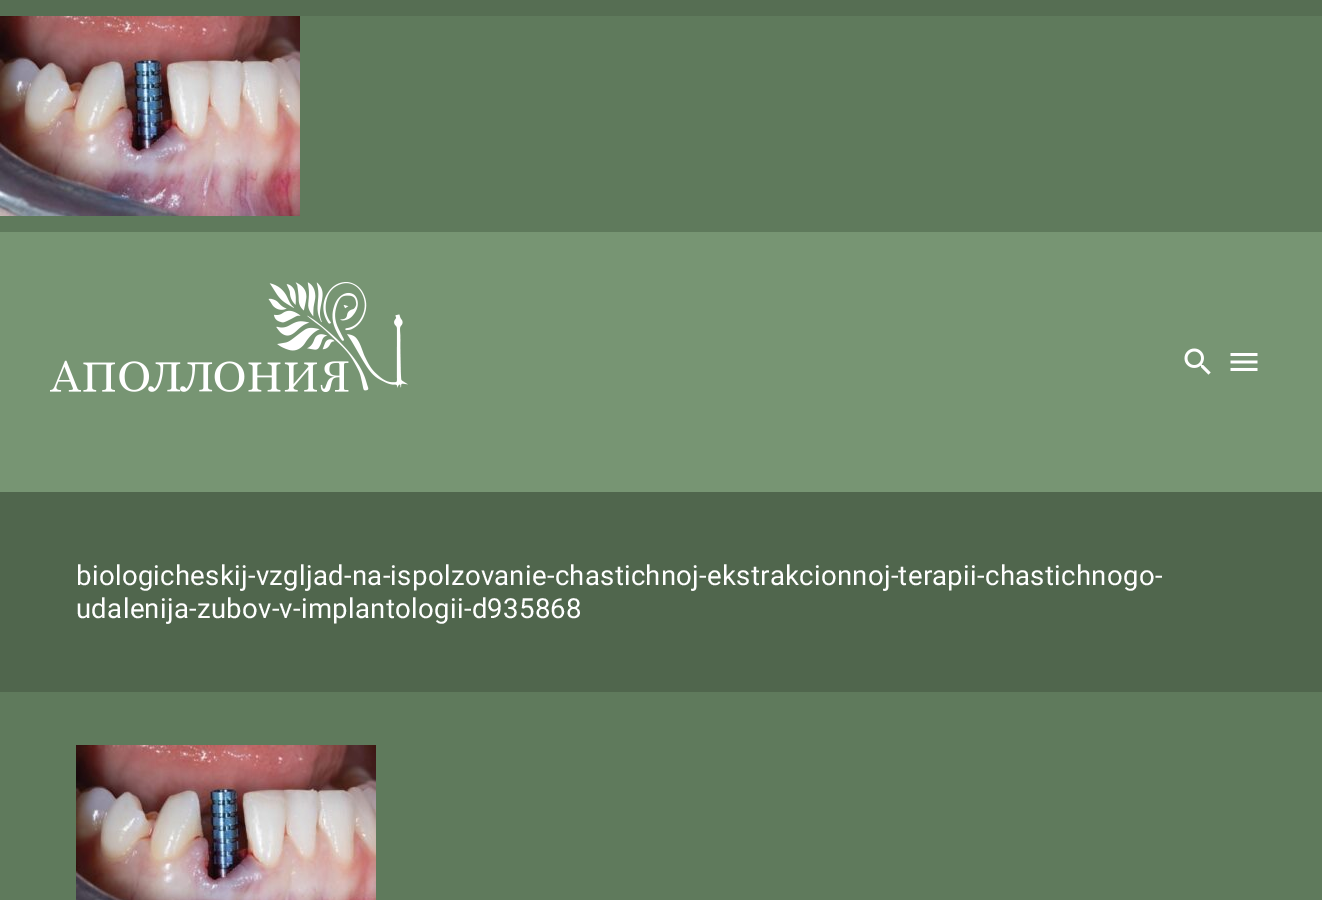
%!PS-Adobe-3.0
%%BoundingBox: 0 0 1322 900
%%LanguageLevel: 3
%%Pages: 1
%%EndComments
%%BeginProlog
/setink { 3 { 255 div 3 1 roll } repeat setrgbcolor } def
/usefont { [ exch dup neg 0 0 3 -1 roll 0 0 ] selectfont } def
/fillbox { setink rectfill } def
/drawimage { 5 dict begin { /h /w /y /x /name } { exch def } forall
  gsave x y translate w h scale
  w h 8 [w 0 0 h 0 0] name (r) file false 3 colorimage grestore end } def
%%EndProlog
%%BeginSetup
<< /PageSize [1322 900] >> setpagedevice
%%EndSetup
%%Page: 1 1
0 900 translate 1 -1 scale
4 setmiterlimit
0 0 1322 900 86 110 83 fillbox
0 16 1322 884 95 122 92 fillbox
(assets/img1.rgb) 0 16 300 200 drawimage
0 232 1322 260 119 149 115 fillbox
(assets/img2.rgb) 50 282 358 110 drawimage
(assets/img3.rgb) 1184 348 27 27 drawimage
(assets/img4.rgb) 1230 353 28 18 drawimage
0 492 1322 200 80 102 77 fillbox
/Roboto-Regular 27.6 usefont
255 255 255 setink
76 585 moveto 0.25 0 (biologicheskij-vzgljad-na-ispolzovanie-chastichnoj-ekstrakcionnoj-terapii-chastichnogo-) ashow
76 618 moveto 0.25 0 (udalenija-zubov-v-implantologii-d935868) ashow
(assets/img5.rgb) 76 745 300 155 drawimage
showpage
%%EOF
